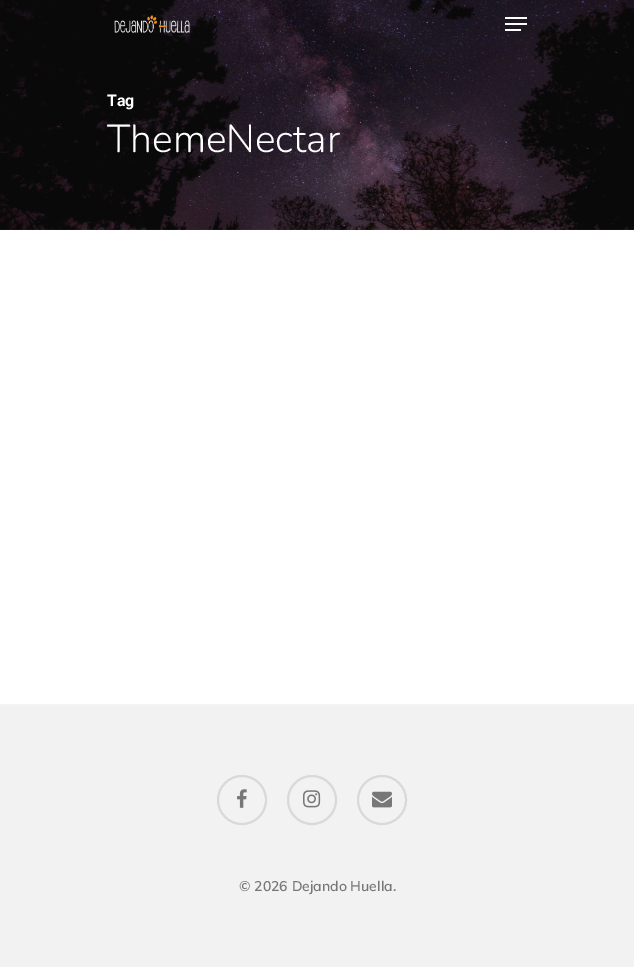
%!PS-Adobe-3.0
%%BoundingBox: 0 0 634 967
%%LanguageLevel: 3
%%Pages: 1
%%EndComments
%%BeginProlog
/setink { 3 { 255 div 3 1 roll } repeat setrgbcolor } def
/usefont { [ exch dup neg 0 0 3 -1 roll 0 0 ] selectfont } def
/drawtext { setink usefont moveto show } def
/fillbox { setink rectfill } def
/disc { newpath 0 360 arc closepath } def
/drawimage { 5 dict begin { /h /w /y /x /name } { exch def } forall
  gsave x y translate w h scale
  w h 8 [w 0 0 h 0 0] name (r) file false 3 colorimage grestore end } def
%%EndProlog
%%BeginSetup
<< /PageSize [634 967] >> setpagedevice
%%EndSetup
%%Page: 1 1
0 967 translate 1 -1 scale
4 setmiterlimit
0 0 634 967 255 255 255 fillbox
(assets/img2.rgb) 0 0 634 230 drawimage
(assets/img1.rgb) 114 15 76 18 drawimage
505 17 22 2 255 255 255 fillbox
505 29 16 2 255 255 255 fillbox
505 23 22 2 255 255 255 fillbox
(Tag) 107 106 /Roboto-Bold 16 255 255 255 drawtext
(ThemeNectar) 107 152 /Nunito-Light 39 255 255 255 drawtext
0 705 634 262 242 242 242 fillbox
0 704 634 1 244 244 244 fillbox
(assets/img3.rgb) 237 789 10 19 drawimage
217 217 217 setink
2 setlinewidth
242 800 24 disc stroke
(assets/img4.rgb) 303 790 18 18 drawimage
312 800 24 disc stroke
(assets/img5.rgb) 372 791 20 17 drawimage
382 800 24 disc stroke
(© 2026 Dejando Huella.) 239 891 /Muli-SemiBold 14 119 119 119 drawtext
showpage
%%EOF
